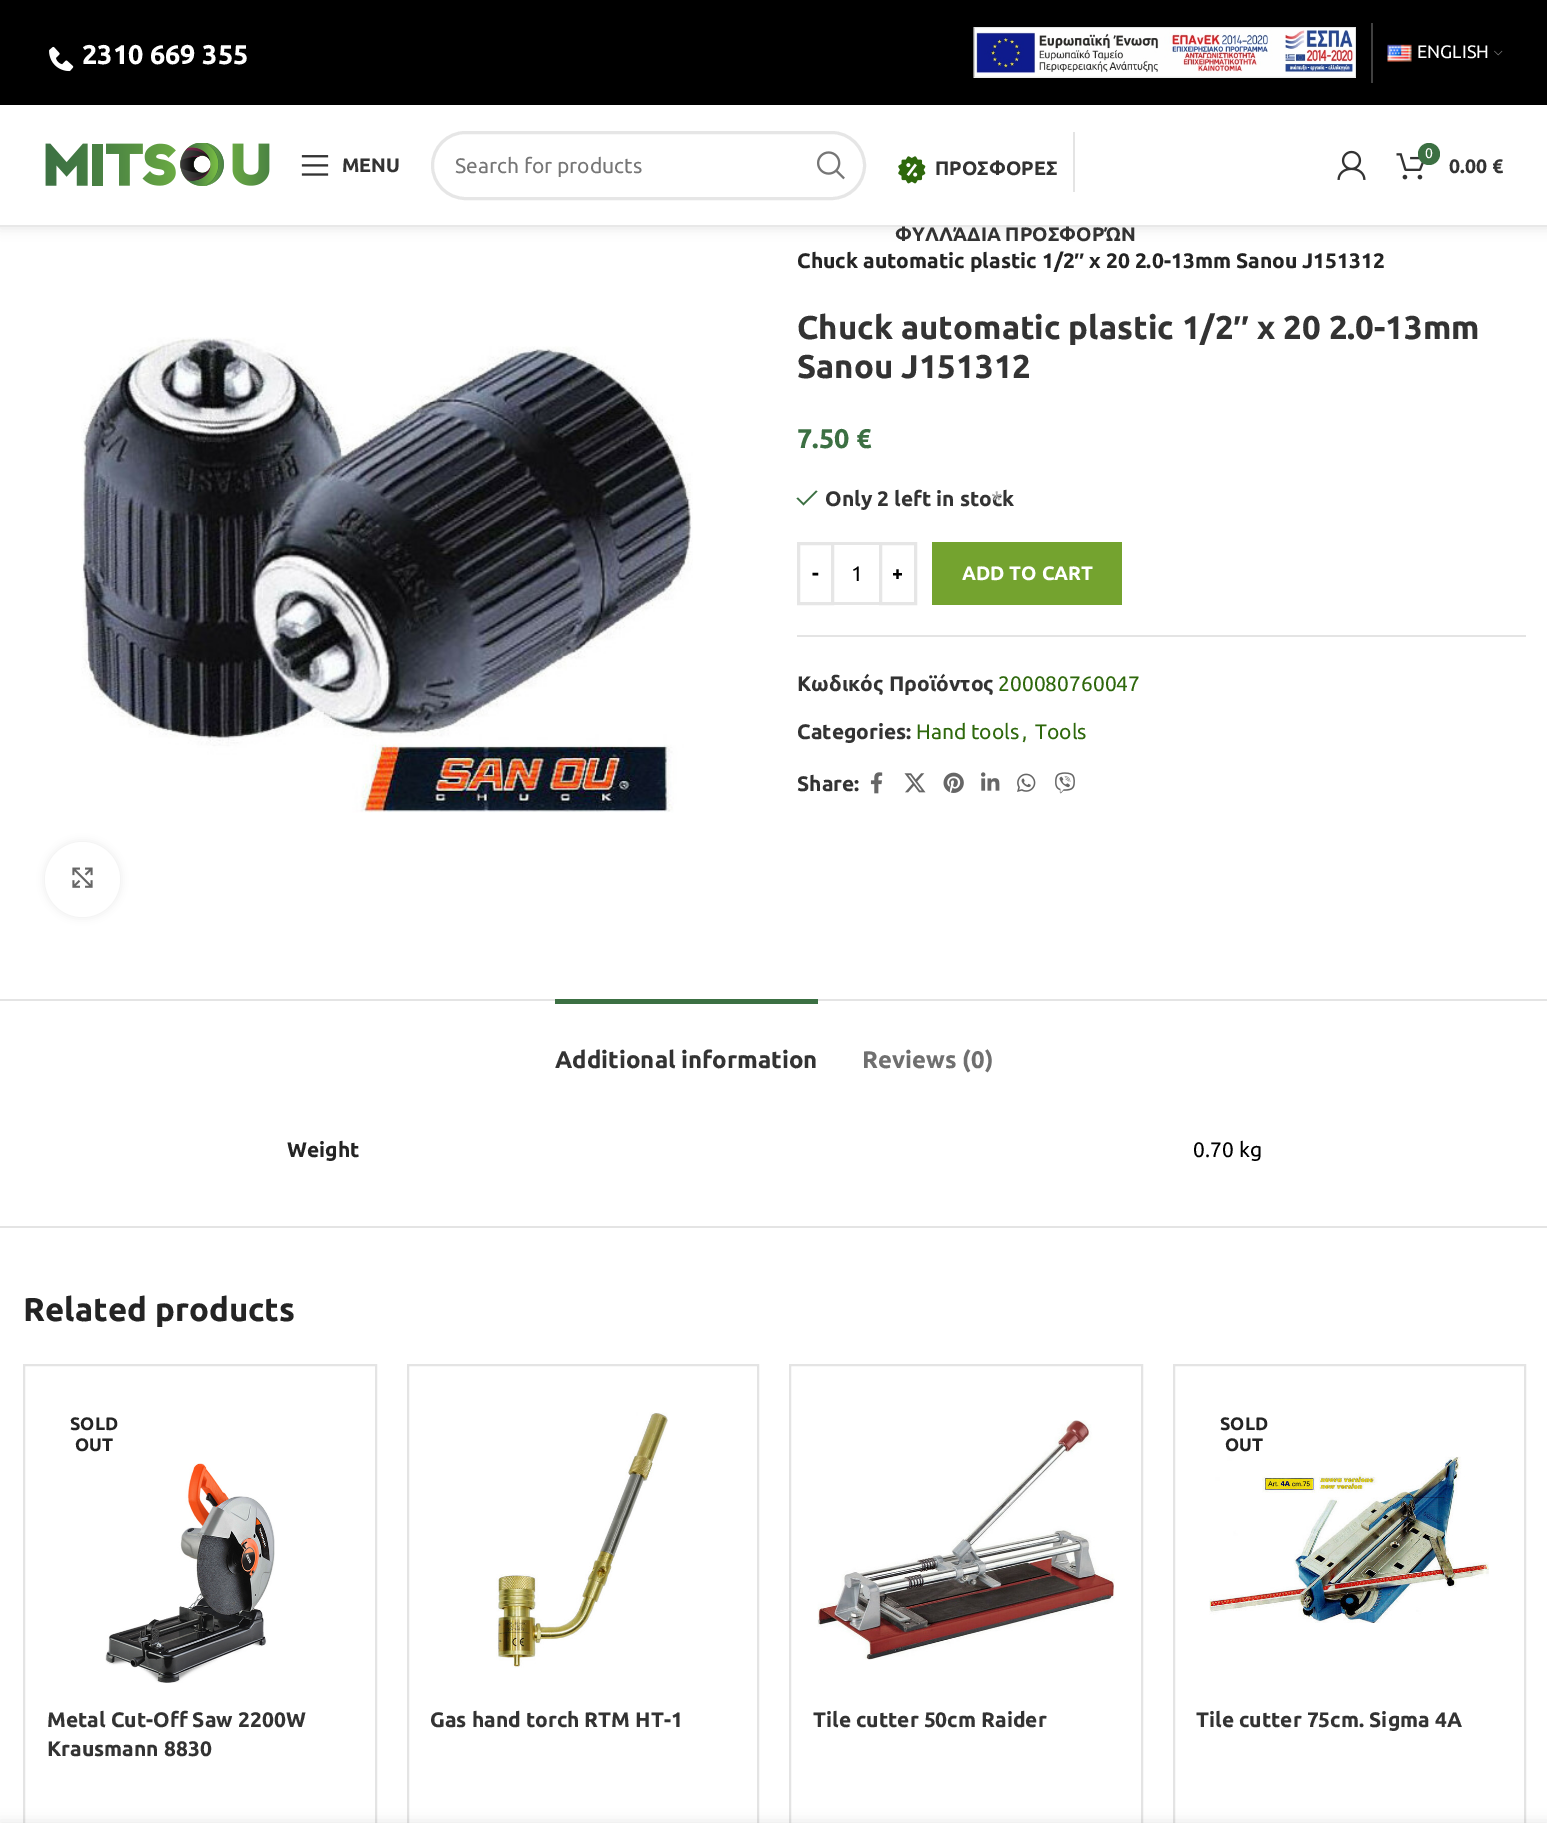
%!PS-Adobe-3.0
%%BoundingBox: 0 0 1547 1823
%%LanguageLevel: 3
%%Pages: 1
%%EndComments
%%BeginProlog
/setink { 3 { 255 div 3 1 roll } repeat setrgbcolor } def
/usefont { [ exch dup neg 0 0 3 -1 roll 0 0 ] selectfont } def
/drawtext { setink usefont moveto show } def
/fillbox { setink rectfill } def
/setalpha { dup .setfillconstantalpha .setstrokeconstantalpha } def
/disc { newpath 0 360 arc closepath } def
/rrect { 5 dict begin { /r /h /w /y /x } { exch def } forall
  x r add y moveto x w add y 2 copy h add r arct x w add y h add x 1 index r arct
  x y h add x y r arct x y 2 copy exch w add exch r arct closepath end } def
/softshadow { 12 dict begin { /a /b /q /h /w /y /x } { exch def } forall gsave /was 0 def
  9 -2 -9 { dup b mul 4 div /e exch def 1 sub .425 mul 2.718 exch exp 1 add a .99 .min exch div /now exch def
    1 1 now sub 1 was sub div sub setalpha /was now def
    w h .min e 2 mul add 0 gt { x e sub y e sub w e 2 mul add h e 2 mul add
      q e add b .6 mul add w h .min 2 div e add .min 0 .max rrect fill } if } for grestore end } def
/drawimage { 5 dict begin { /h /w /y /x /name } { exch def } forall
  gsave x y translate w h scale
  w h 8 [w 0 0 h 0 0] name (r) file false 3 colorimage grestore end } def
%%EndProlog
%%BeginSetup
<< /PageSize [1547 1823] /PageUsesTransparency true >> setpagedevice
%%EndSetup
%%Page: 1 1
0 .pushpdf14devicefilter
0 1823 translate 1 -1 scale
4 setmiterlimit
0 0 1547 1823 255 255 255 fillbox
0 0 1547 105 0 0 0 fillbox
(assets/img1.rgb) 49 46 25 26 drawimage
(2310 669 355) 82 64 /Ubuntu-Bold 27 255 255 255 drawtext
(assets/img2.rgb) 973 27 383 51 drawimage
1371 23 2 60 64 64 64 fillbox
(assets/img3.rgb) 1387 44 25 18 drawimage
(ENGLISH) 1417 58 /Ubuntu-Regular 18 255 255 255 drawtext
(assets/img4.rgb) 1494 50 9 6 drawimage
0 0 0 setink
0 107 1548 121 0 6 0.1 softshadow
0 105 1547 120 255 255 255 fillbox
0 225 1547 2 232 232 232 fillbox
(assets/img5.rgb) 45 143 225 43 drawimage
(assets/img6.rgb) 301 155 28 21 drawimage
(MENU) 342 172 /Ubuntu-Bold 19.5 51 51 51 drawtext
230 230 230 setink
3 setlinewidth
432.5 132.5 432 66 33 rrect stroke
(Search for products) 455 173 /Ubuntu-Regular 21 118 118 118 drawtext
(assets/img7.rgb) 817 151 28 29 drawimage
(assets/img8.rgb) 898 156 28 28 drawimage
(ΠΡΟΣΦΟΡΕΣ) 935 175 /Ubuntu-Bold 19.5 51 51 51 drawtext
1073 132 2 60 228 228 228 fillbox
(ΦΥΛΛΆΔΙΑ ΠΡΟΣΦΟΡΏΝ) 895 241 /Ubuntu-Bold 19.5 51 51 51 drawtext
(assets/img9.rgb) 1396 153 28 27 drawimage
60 112 67 setink
1429 154 11 disc fill
(0) 1425 158 /Ubuntu-Regular 14 255 255 255 drawtext
(0.00 €) 1449 173 /Ubuntu-Bold 19.5 51 51 51 drawtext
(assets/img10.rgb) 1337 150 29 30 drawimage
(Only 2 left in stock) 825 506 /Ubuntu-Bold 21 51 51 51 drawtext
(*) 991 508 /Ubuntu-Regular 24 173 173 173 drawtext
(assets/img11.rgb) 81 337 612 476 drawimage
0 0 0 setink
45 842 75 75 37.5 4 0.08 softshadow
255 255 255 setink
82.5 879.5 37.5 disc fill
(assets/img12.rgb) 72 867 21 21 drawimage
(Chuck automatic plastic 1/2) 797 268 /Ubuntu-Bold 21 36 36 36 drawtext
(″) 1074 268 /LiberationSans-Bold 21 36 36 36 drawtext
(x 20 2.0-13mm Sanou J151312) 1089 268 /Ubuntu-Bold 21 36 36 36 drawtext
(Chuck automatic plastic 1/2) 797 339 /Ubuntu-Bold 33 51 51 51 drawtext
(″) 1233 339 /LiberationSans-Bold 33 51 51 51 drawtext
(x 20 2.0-13mm) 1257 339 /Ubuntu-Bold 33 51 51 51 drawtext
(Sanou J151312) 797 378 /Ubuntu-Bold 33 51 51 51 drawtext
(7.50 €) 797 448 /Ubuntu-Bold 27 60 112 67 drawtext
817.5 491.5 moveto 816 490.5 lineto 803.5 503 lineto 798 497.5 lineto 796.5 498.5 lineto 803.5 505.5 lineto closepath fill
230 230 230 setink
798.5 543.5 34 60 rectstroke
(-) 812 580 /Ubuntu-Bold 19.5 0 0 0 drawtext
834 542 45 3 230 230 230 fillbox
834 602 45 3 230 230 230 fillbox
(1) 851 581 /Ubuntu-Regular 21 0 0 0 drawtext
230 230 230 setink
880.5 543.5 35 60 rectstroke
(+) 892 580 /Ubuntu-Bold 19.5 0 0 0 drawtext
932 542 190 63 116 163 47 fillbox
(ADD TO CART) 962 580 /Ubuntu-Bold 19.5 255 255 255 drawtext
797 635 729 2 228 228 228 fillbox
(Κωδικός Προϊόντος) 797 691 /Ubuntu-Bold 21 51 51 51 drawtext
(200080760047) 998 691 /Ubuntu-Regular 21 46 104 12 drawtext
(Categories:) 797 739 /Ubuntu-Bold 21 51 51 51 drawtext
(Hand tools) 916 739 /Ubuntu-Regular 21 46 104 12 drawtext
(,) 1022 739 /Ubuntu-Regular 21 46 104 12 drawtext
(Tools) 1035 739 /Ubuntu-Regular 21 46 104 12 drawtext
(Share:) 797 791 /Ubuntu-Bold 21 51 51 51 drawtext
(assets/img13.rgb) 870 772 13 22 drawimage
(assets/img14.rgb) 904 773 22 20 drawimage
(assets/img15.rgb) 943 772 21 21 drawimage
(assets/img16.rgb) 981 772 19 19 drawimage
(assets/img17.rgb) 1017 773 19 19 drawimage
(assets/img18.rgb) 1055 772 20 22 drawimage
0 999 1547 2 228 228 228 fillbox
0 1226 1547 2 228 228 228 fillbox
555 999 263 5 60 112 67 fillbox
(Additional information) 555 1068 /Ubuntu-Bold 24 51 51 51 drawtext
(Reviews \(0\)) 862 1068 /Ubuntu-Bold 24 112 112 112 drawtext
(Weight) 287 1157 /Ubuntu-Bold 21 36 36 36 drawtext
(0.70 kg) 1193 1157 /Ubuntu-Regular 21 0 0 0 drawtext
(Related products) 23 1321 /Ubuntu-Bold 33 36 36 36 drawtext
228 228 228 setink
2 setlinewidth
24 1365 352 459 rectstroke
(SOLD) 70 1430 /Ubuntu-Bold 18 36 36 36 drawtext
(OUT) 75 1451 /Ubuntu-Bold 18 36 36 36 drawtext
(assets/img19.rgb) 105 1463 170 220 drawimage
(Metal Cut-Off Saw 2200W) 47 1727 /Ubuntu-Bold 21 51 51 51 drawtext
(Krausmann 8830) 47 1756 /Ubuntu-Bold 21 51 51 51 drawtext
228 228 228 setink
408 1365 350 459 rectstroke
(assets/img20.rgb) 496 1412 172 256 drawimage
(Gas hand torch RTM HT-1) 430 1727 /Ubuntu-Bold 21 51 51 51 drawtext
228 228 228 setink
790 1365 352 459 rectstroke
(assets/img21.rgb) 817 1420 298 240 drawimage
(Tile cutter 50cm Raider) 813 1727 /Ubuntu-Bold 21 51 51 51 drawtext
228 228 228 setink
1174 1365 351 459 rectstroke
(SOLD) 1220 1430 /Ubuntu-Bold 18 36 36 36 drawtext
(OUT) 1225 1451 /Ubuntu-Bold 18 36 36 36 drawtext
(assets/img22.rgb) 1209 1456 280 167 drawimage
(Tile cutter 75cm. Sigma 4A) 1196 1727 /Ubuntu-Bold 21 51 51 51 drawtext
0 0 0 setink
0 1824 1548 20 0 7 0.12 softshadow
.poppdf14devicefilter showpage
%%EOF
